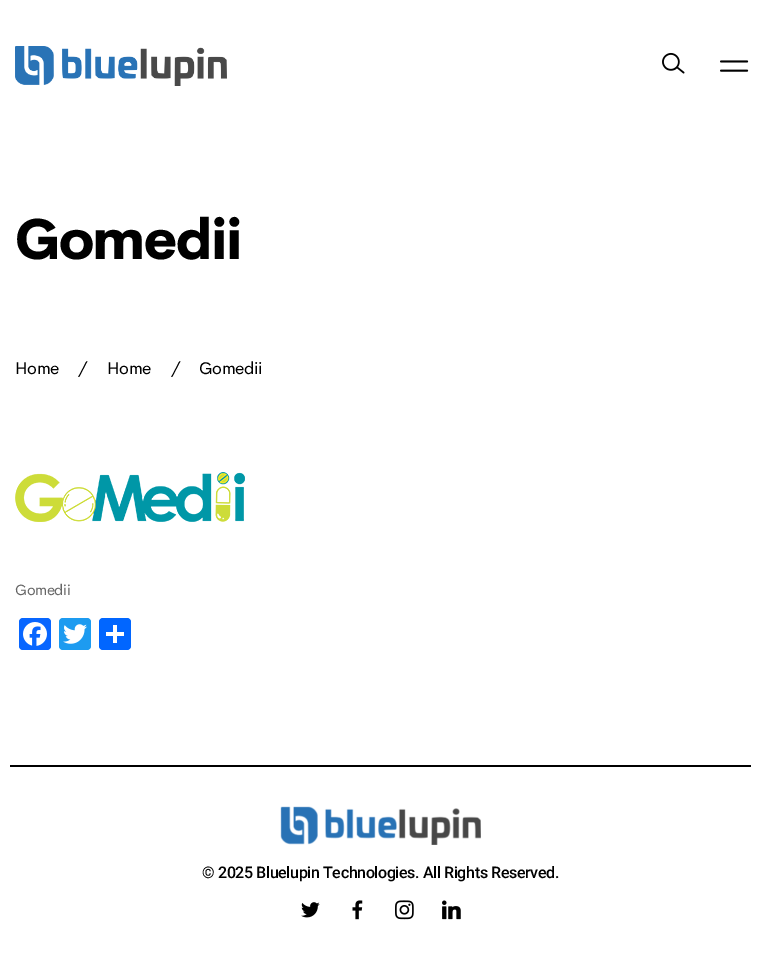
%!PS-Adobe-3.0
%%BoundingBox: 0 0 761 955
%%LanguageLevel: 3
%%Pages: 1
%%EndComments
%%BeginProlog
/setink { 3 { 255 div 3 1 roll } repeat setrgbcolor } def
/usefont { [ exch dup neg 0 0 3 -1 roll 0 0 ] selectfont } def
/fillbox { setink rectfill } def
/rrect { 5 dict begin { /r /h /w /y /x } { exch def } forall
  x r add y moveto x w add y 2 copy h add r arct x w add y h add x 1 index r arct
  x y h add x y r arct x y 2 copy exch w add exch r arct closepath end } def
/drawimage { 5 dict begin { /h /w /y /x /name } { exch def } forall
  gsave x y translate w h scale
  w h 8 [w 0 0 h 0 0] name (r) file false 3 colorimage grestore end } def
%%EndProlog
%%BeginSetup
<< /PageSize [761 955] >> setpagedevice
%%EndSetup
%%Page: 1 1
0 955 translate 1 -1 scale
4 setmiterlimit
0 0 761 955 255 255 255 fillbox
(assets/img1.rgb) 15 46 212 40 drawimage
(assets/img2.rgb) 662 52 23 22 drawimage
(assets/img3.rgb) 720 60 29 12 drawimage
/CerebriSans-ExtraBold 56.25 usefont
0 0 0 setink
15 259 moveto -1.5 0 (Gomedii) ashow
/CerebriSans-Regular 17 usefont
15 374 moveto -0.38 0 (Home) ashow
78 374 moveto -0.38 0 (/) ashow
107 374 moveto -0.38 0 (Home) ashow
171 374 moveto -0.38 0 (/) ashow
199 374 moveto -0.38 0 (Gomedii) ashow
(assets/img4.rgb) 15 472 230 50 drawimage
/CerebriSans-Regular 15 usefont
102 102 102 setink
15 595 moveto -0.38 0 (Gomedii) ashow
8 102 255 setink
19 618 32 32 4 rrect fill
(assets/img5.rgb) 23 622 24 24 drawimage
29 155 240 setink
59 618 32 32 4 rrect fill
(assets/img6.rgb) 63 624 24 20 drawimage
1 102 255 setink
99 618 32 32 4 rrect fill
113 625 4 18 255 255 255 fillbox
106 632 18 4 255 255 255 fillbox
10 765 741 2 0 0 0 fillbox
(assets/img7.rgb) 280 806 201 39 drawimage
/Roboto-Medium 16 usefont
202 878 moveto -0.38 0 (© 2025 Bluelupin Technologies. All Rights Reserved.) ashow
(assets/img8.rgb) 301 902 19 16 drawimage
(assets/img9.rgb) 352 900 11 20 drawimage
(assets/img10.rgb) 395 900 19 20 drawimage
(assets/img11.rgb) 442 900 19 20 drawimage
showpage
%%EOF
